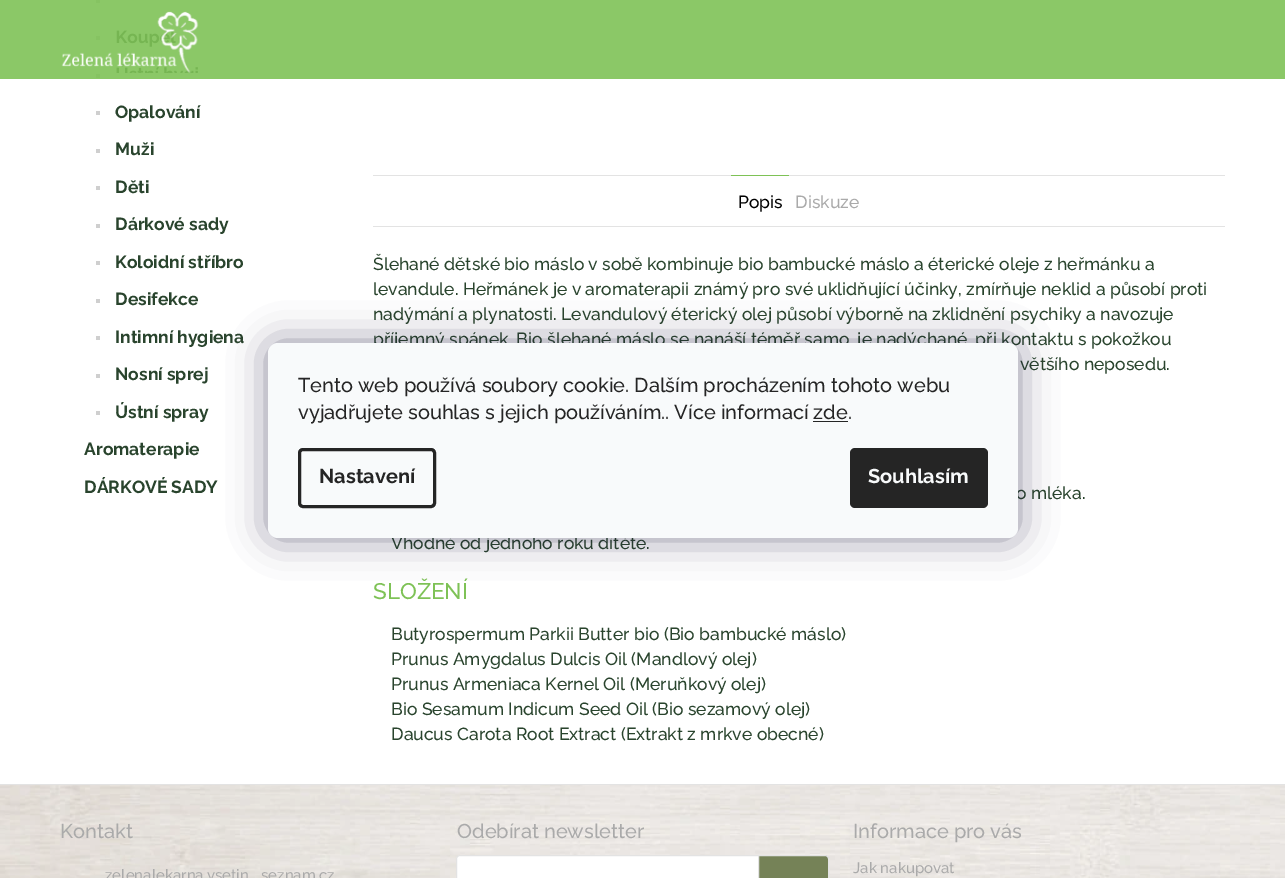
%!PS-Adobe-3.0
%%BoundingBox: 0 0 1285 878
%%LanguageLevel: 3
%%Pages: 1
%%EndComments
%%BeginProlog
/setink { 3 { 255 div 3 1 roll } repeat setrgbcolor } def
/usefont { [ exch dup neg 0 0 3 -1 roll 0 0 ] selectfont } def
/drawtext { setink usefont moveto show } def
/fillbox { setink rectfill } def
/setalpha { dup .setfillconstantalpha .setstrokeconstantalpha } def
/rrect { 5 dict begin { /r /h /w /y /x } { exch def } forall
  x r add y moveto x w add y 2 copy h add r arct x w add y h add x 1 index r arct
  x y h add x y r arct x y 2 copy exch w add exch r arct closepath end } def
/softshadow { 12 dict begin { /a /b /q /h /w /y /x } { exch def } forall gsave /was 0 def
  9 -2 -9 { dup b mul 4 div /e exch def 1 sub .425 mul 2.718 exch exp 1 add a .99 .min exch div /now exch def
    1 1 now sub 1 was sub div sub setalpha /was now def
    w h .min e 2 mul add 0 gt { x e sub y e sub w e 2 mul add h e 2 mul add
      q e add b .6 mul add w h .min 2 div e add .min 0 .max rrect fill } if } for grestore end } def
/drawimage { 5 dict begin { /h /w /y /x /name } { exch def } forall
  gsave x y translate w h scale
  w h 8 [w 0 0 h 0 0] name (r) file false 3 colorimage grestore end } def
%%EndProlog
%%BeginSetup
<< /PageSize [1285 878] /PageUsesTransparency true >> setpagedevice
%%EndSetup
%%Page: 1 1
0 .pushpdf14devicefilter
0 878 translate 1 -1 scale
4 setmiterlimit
0 0 1285 878 255 255 255 fillbox
96 0 4 3 207 207 207 fillbox
96 36 4 4 207 207 207 fillbox
96 74 4 4 207 207 207 fillbox
0.9 setalpha
0 0 1285 79 126 194 86 fillbox
1 setalpha
(assets/img1.rgb) 61 11 138 62 drawimage
96 111 4 4 207 207 207 fillbox
(Opalování) 115 118 /Raleway-Bold 17.5 41 68 45 drawtext
96 149 4 4 207 207 207 fillbox
(Muži) 115 155 /Raleway-Bold 17.5 41 68 45 drawtext
96 186 4 4 207 207 207 fillbox
(Děti) 115 193 /Raleway-Bold 17.5 41 68 45 drawtext
96 224 4 4 207 207 207 fillbox
(Dárkové sady) 115 230 /Raleway-Bold 17.5 41 68 45 drawtext
96 261 4 4 207 207 207 fillbox
(Koloidní stříbro) 115 268 /Raleway-Bold 17.5 41 68 45 drawtext
96 299 4 4 207 207 207 fillbox
(Desifekce) 115 305 /Raleway-Bold 17.5 41 68 45 drawtext
96 336 4 4 207 207 207 fillbox
(Intimní hygiena) 115 343 /Raleway-Bold 17.5 41 68 45 drawtext
96 374 4 4 207 207 207 fillbox
(Nosní sprej) 115 380 /Raleway-Bold 17.5 41 68 45 drawtext
96 411 4 4 207 207 207 fillbox
(Ústní spray) 115 418 /Raleway-Bold 17.5 41 68 45 drawtext
(Aromaterapie) 84 455 /Raleway-Bold 17.5 41 68 45 drawtext
(DÁRKOVÉ SADY) 84 493 /Raleway-Bold 17.5 41 68 45 drawtext
373 175 852 1 227 227 227 fillbox
373 226 852 1 227 227 227 fillbox
731 175 58 1 126 194 86 fillbox
(Popis) 738 208 /Raleway-Medium 17.5 0 0 0 drawtext
(Diskuze) 795 208 /Raleway-Medium 17.5 170 170 170 drawtext
(Šlehané dětské bio máslo v sobě kombinuje bio bambucké máslo a éterické oleje z heřmánku a) 373 270 /Raleway-Medium 17.5 41 68 45 drawtext
(levandule. Heřmánek je v aromaterapii známý pro své uklidňující účinky, zmírňuje neklid a působí proti) 373 295 /Raleway-Medium 17.5 41 68 45 drawtext
(nadýmání a plynatosti. Levandulový éterický olej působí výborně na zklidnění psychiky a navozuje) 373 320 /Raleway-Medium 17.5 41 68 45 drawtext
(příjemný spánek. Bio šlehané máslo se nanáší téměř samo, je nadýchané, při kontaktu s pokožkou) 373 345 /Raleway-Medium 17.5 41 68 45 drawtext
(většího neposedu.) 1020 370 /Raleway-Medium 17.5 41 68 45 drawtext
(o mléka.) 1016 499 /Raleway-Medium 17.5 41 68 45 drawtext
(Vhodné od jednoho roku dítěte.) 391 549 /Raleway-Medium 17.5 41 68 45 drawtext
(SLOŽENÍ) 373 599 /Raleway-Medium 22.5 126 194 86 drawtext
(Butyrospermum Parkii Butter bio \(Bio bambucké máslo\)) 391 640 /Raleway-Medium 17.5 41 68 45 drawtext
(Prunus Amygdalus Dulcis Oil \(Mandlový olej\)) 391 665 /Raleway-Medium 17.5 41 68 45 drawtext
(Prunus Armeniaca Kernel Oil \(Meruňkový olej\)) 391 690 /Raleway-Medium 17.5 41 68 45 drawtext
(Bio Sesamum Indicum Seed Oil \(Bio sezamový olej\)) 391 715 /Raleway-Medium 17.5 41 68 45 drawtext
(Daucus Carota Root Extract \(Extrakt z mrkve obecné\)) 391 740 /Raleway-Medium 17.5 41 68 45 drawtext
(assets/img2.rgb) 0 785 1285 93 drawimage
0 784 1285 1 227 227 227 fillbox
(Kontakt) 60 838 /Raleway-Medium 20 170 170 170 drawtext
(zelenalekarna.vsetin) 105 880 /Raleway-Medium 15 170 170 170 drawtext
(seznam.cz) 261 880 /Raleway-Medium 15 170 170 170 drawtext
(Odebírat newsletter) 457 838 /Raleway-Medium 20 170 170 170 drawtext
255 255 255 setink
456.5 855.5 372 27 3.5 rrect gsave fill grestore
227 227 227 setink
stroke
117 130 87 setink
758.5 855.5 moveto 825 855.5 lineto 827 855.5 828.5 857 828.5 859 curveto 828.5 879 lineto 828.5 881 827 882.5 825 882.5 curveto 758.5 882.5 lineto closepath gsave fill grestore
227 227 227 setink
stroke
(Informace pro vás) 853 838 /Raleway-Medium 20 170 170 170 drawtext
(Jak nakupovat) 853 873 /Raleway-Medium 15 170 170 170 drawtext
27 25 57 setink
268 343 750 195 10 19 0.5 softshadow
248 250 251 setink
268 343 750 195 10 rrect fill
(Tento web používá soubory cookie. Dalším procházením tohoto webu) 298 392 /Raleway-Medium 20 37 37 37 drawtext
(vyjadřujete souhlas s jejich používáním.. Více informací zde.) 298 419 /Raleway-Medium 20 37 37 37 drawtext
813 421 35 1 37 37 37 fillbox
3 setlinewidth
299.5 449.5 135 57 3.5 rrect stroke
(Nastavení) 319 483 /Raleway-Bold 20 37 37 37 drawtext
850 448 138 60 5 rrect fill
(Souhlasím) 868 483 /Raleway-Bold 20 248 250 251 drawtext
.poppdf14devicefilter showpage
%%EOF
